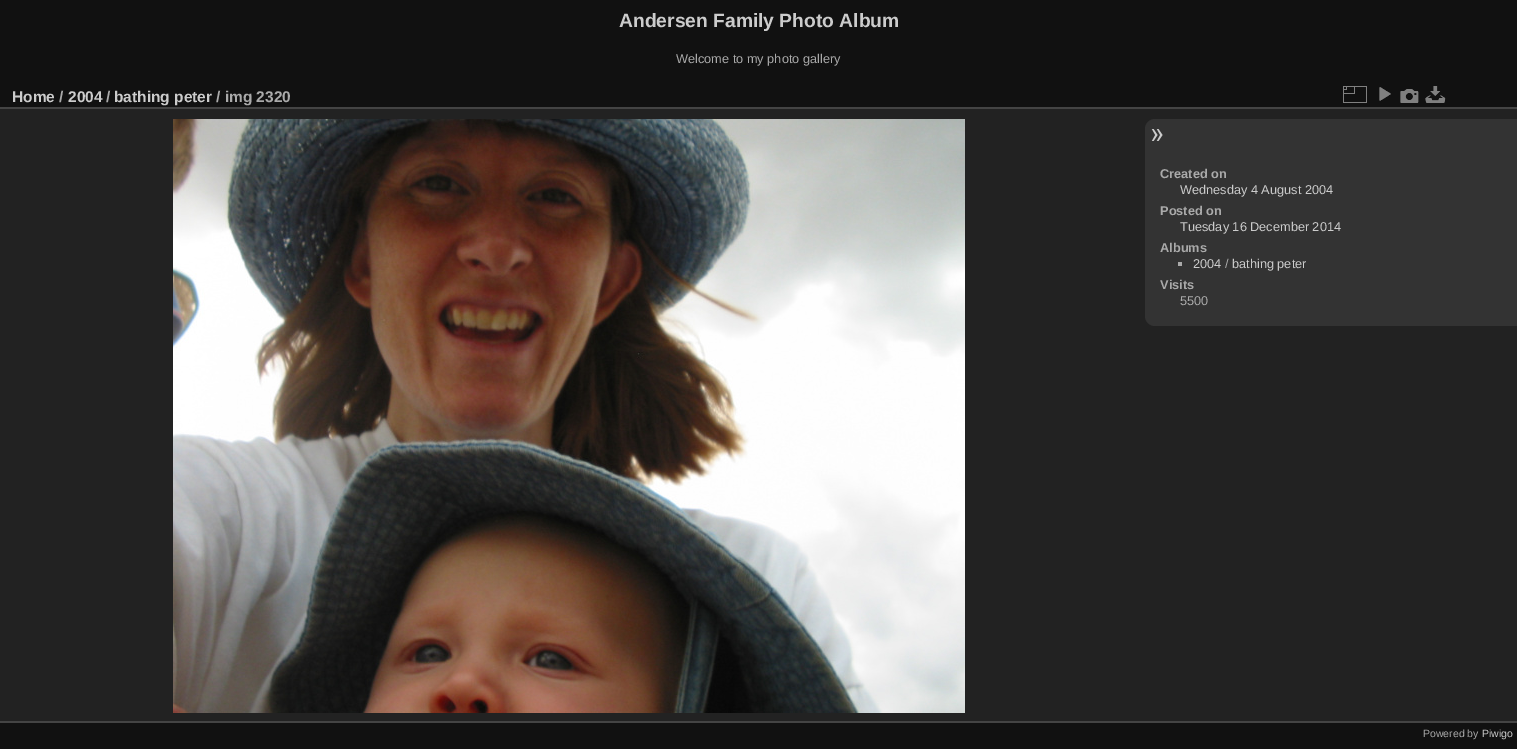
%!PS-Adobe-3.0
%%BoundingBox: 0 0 1517 749
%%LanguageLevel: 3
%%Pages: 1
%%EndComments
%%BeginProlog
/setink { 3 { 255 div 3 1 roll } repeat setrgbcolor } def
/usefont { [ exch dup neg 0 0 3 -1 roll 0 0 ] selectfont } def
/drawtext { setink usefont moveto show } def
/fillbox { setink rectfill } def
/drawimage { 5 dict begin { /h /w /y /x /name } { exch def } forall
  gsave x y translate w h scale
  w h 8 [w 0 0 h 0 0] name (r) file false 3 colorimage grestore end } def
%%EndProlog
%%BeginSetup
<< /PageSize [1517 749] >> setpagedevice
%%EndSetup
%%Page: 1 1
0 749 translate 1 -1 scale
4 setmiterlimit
0 0 1517 749 17 17 17 fillbox
(Andersen Family Photo Album) 619 27 /LiberationSans-Bold 19.25 204 204 204 drawtext
(Welcome to my photo gallery) 676 63 /LiberationSans-Regular 12.75 170 170 170 drawtext
0 109 1517 612 34 34 34 fillbox
0 721 1517 2 68 68 68 fillbox
0 107 1517 2 68 68 68 fillbox
(Home) 12 102 /LiberationSans-Bold 15.5 204 204 204 drawtext
(/) 59 102 /LiberationSans-Bold 15.5 170 170 170 drawtext
(2004) 68 102 /LiberationSans-Bold 15.5 204 204 204 drawtext
(/) 106 102 /LiberationSans-Bold 15.5 170 170 170 drawtext
(bathing peter) 114 102 /LiberationSans-Bold 15.5 204 204 204 drawtext
(/ img 2320) 216 102 /LiberationSans-Bold 15.5 170 170 170 drawtext
(assets/img1.rgb) 1343 86 24 17 drawimage
(assets/img2.rgb) 1379 87 12 14 drawimage
(assets/img3.rgb) 1400 89 19 14 drawimage
(assets/img4.rgb) 1425 86 21 17 drawimage
(assets/img5.rgb) 173 119 792 594 drawimage
51 51 51 setink
1155 119 moveto 1517 119 lineto 1517 326 lineto 1155 326 lineto 1149.5 326 1145 321.5 1145 316 curveto 1145 129 lineto 1145 123.5 1149.5 119 1155 119 curveto closepath fill
(assets/img6.rgb) 1151 129 12 12 drawimage
(Created on) 1160 178 /LiberationSans-Bold 12.75 170 170 170 drawtext
(Wednesday 4 August 2004) 1180 194 /LiberationSans-Regular 12.75 204 204 204 drawtext
(Posted on) 1160 215 /LiberationSans-Bold 12.75 170 170 170 drawtext
(Tuesday 16 December 2014) 1180 231 /LiberationSans-Regular 12.75 204 204 204 drawtext
(Albums) 1160 252 /LiberationSans-Bold 12.75 170 170 170 drawtext
1178 262 4 4 170 170 170 fillbox
(2004) 1193 268 /LiberationSans-Regular 12.75 204 204 204 drawtext
(/) 1225 268 /LiberationSans-Regular 12.75 170 170 170 drawtext
(bathing peter) 1232 268 /LiberationSans-Regular 12.75 204 204 204 drawtext
(Visits) 1160 289 /LiberationSans-Bold 12.75 170 170 170 drawtext
(5500) 1180 305 /LiberationSans-Regular 12.75 170 170 170 drawtext
(Powered by) 1423 737 /LiberationSans-Regular 10.5 170 170 170 drawtext
(Piwigo) 1482 737 /LiberationSans-Regular 10.5 204 204 204 drawtext
showpage
%%EOF
